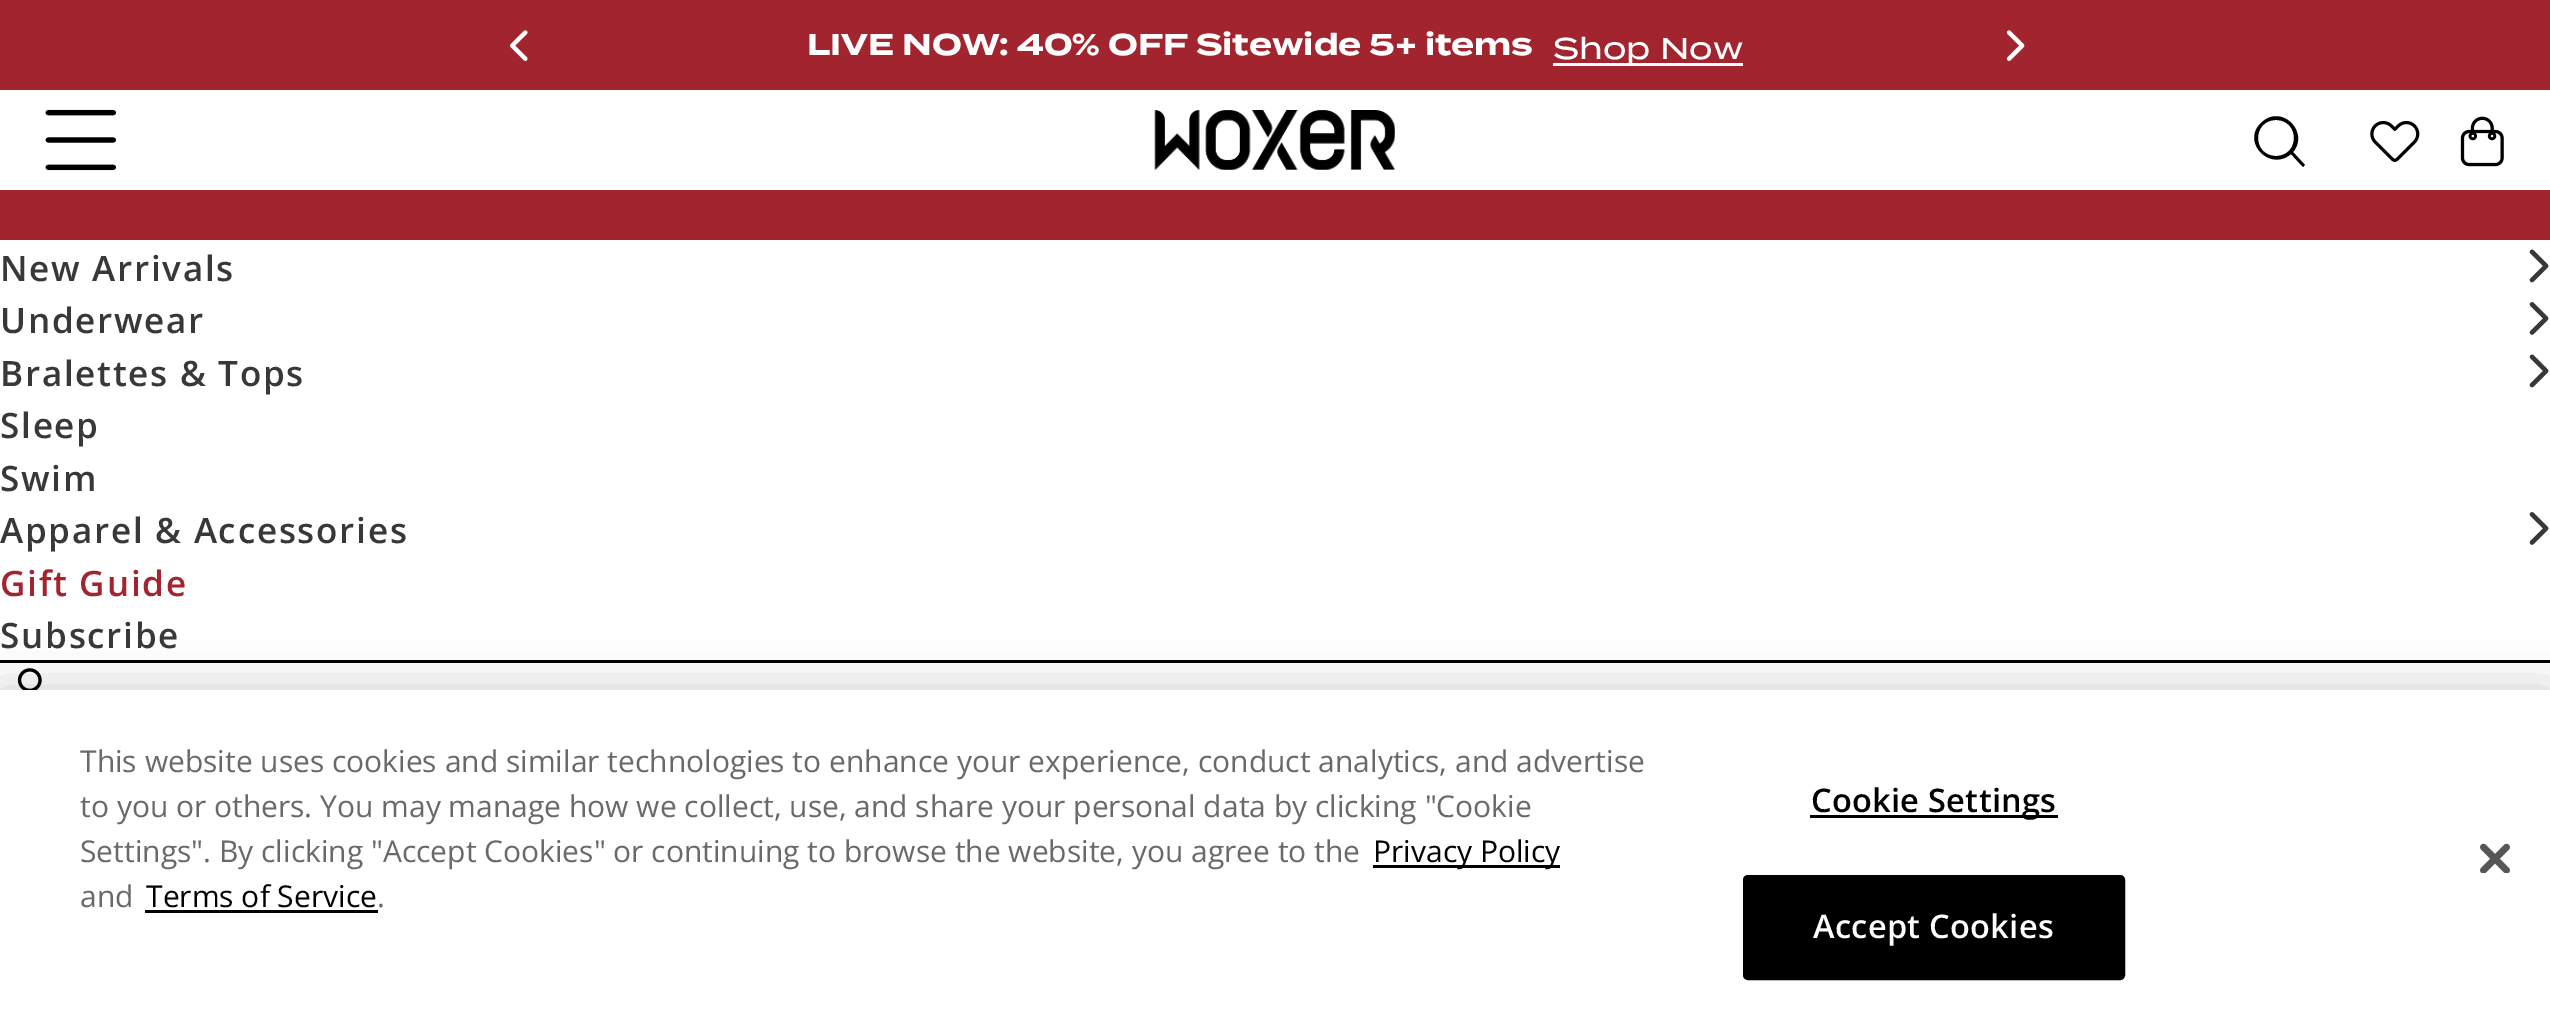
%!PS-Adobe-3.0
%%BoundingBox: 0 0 2550 1030
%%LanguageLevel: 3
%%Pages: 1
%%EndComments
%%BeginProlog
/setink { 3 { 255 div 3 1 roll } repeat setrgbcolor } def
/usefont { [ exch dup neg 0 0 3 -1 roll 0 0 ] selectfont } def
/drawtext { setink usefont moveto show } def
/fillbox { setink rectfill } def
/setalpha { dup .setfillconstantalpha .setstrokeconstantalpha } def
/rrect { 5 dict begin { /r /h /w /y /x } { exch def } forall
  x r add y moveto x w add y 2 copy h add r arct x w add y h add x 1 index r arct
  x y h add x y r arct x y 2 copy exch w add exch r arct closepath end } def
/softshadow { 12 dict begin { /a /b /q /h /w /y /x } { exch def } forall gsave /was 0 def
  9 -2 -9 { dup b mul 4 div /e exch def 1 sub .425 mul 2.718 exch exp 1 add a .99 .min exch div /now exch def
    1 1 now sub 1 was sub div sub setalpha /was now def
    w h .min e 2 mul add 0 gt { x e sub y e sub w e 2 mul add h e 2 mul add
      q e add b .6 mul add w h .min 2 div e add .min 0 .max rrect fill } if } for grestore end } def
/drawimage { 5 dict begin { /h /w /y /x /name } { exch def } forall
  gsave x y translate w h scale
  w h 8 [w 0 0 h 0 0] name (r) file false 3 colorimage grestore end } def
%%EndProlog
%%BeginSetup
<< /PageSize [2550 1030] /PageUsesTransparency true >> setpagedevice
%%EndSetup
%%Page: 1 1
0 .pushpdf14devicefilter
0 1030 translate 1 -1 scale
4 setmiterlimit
0 0 2550 1030 255 255 255 fillbox
0 0 2550 90 162 36 47 fillbox
(assets/img1.rgb) 510 30 18 31 drawimage
(LIVE NOW: 40% OFF Sitewide 5+ items) 807 55 /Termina-Bold 30 255 255 255 drawtext
1553 63 190 3 255 255 255 fillbox
(Shop Now) 1553 59 /Termina-Medium 30 255 255 255 drawtext
(assets/img2.rgb) 2006 30 19 31 drawimage
(assets/img3.rgb) 45 109 72 62 drawimage
(assets/img4.rgb) 1154 110 241 60 drawimage
0 0 0 setink
2291 154 moveto 2302 166 lineto 2303 167 2304 167 2304 166 curveto 2305 165 2305 164 2304 164 curveto 2293 152 lineto 2310 132 2281 103 2261 123 curveto 2241 142 2270 172 2291 154 curveto closepath 2276 120 moveto 2300 120 2300 156 2276 156 curveto 2252 156 2252 120 2276 120 curveto closepath eofill
(assets/img5.rgb) 2370 120 50 42 drawimage
(assets/img6.rgb) 2460 116 44 51 drawimage
0 660 2550 3 0 0 0 fillbox
0 190 2550 50 162 36 47 fillbox
/OpenSans-SemiBold 35 usefont
56 56 56 setink
0 281 moveto 1.75 0 (New Arrivals) ashow
(assets/img7.rgb) 2529 249 20 34 drawimage
0 333 moveto 1.75 0 (Underwear) ashow
(assets/img8.rgb) 2529 302 20 33 drawimage
0 386 moveto 1.75 0 (Bralettes & Tops) ashow
(assets/img7.rgb) 2529 354 20 34 drawimage
0 438 moveto 1.75 0 (Sleep) ashow
0 491 moveto 1.75 0 (Swim) ashow
0 543 moveto 1.75 0 (Apparel & Accessories) ashow
(assets/img8.rgb) 2529 512 20 33 drawimage
162 36 47 setink
0 596 moveto 1.75 0 (Gift Guide) ashow
56 56 56 setink
0 648 moveto 1.75 0 (Subscribe) ashow
(assets/img9.rgb) 11 668 38 22 drawimage
0 0 0 setink
0 690 2550 340 0 22.5 0.2 softshadow
0 690 2550 340 255 255 255 fillbox
(This website uses cookies and similar technologies to enhance your experience, conduct analytics, and advertise) 80 772 /OpenSans-Regular 30 105 105 105 drawtext
(to you or others. You may manage how we collect, use, and share your personal data by clicking "Cookie) 80 817 /OpenSans-Regular 30 105 105 105 drawtext
(Settings". By clicking "Accept Cookies" or continuing to browse the website, you agree to the) 80 862 /OpenSans-Regular 30 105 105 105 drawtext
1373 865 187 3 0 0 0 fillbox
(Privacy Policy) 1373 862 /OpenSans-Regular 30 0 0 0 drawtext
(and) 80 907 /OpenSans-Regular 30 105 105 105 drawtext
(Terms of Service) 146 907 /OpenSans-Regular 30 0 0 0 drawtext
145 910 233 3 0 0 0 fillbox
(.) 377 907 /OpenSans-Regular 30 105 105 105 drawtext
1810 815 248 3 0 0 0 fillbox
/OpenSans-SemiBold 32.5 usefont
1811 812 moveto 0.3 0 (Cookie Settings) ashow
1744.5 876.5 379 102 3.5 rrect gsave fill grestore
3 setlinewidth
stroke
255 255 255 setink
1813 938 moveto 0.3 0 (Accept Cookies) ashow
(assets/img10.rgb) 2480 843 30 30 drawimage
.poppdf14devicefilter showpage
%%EOF
